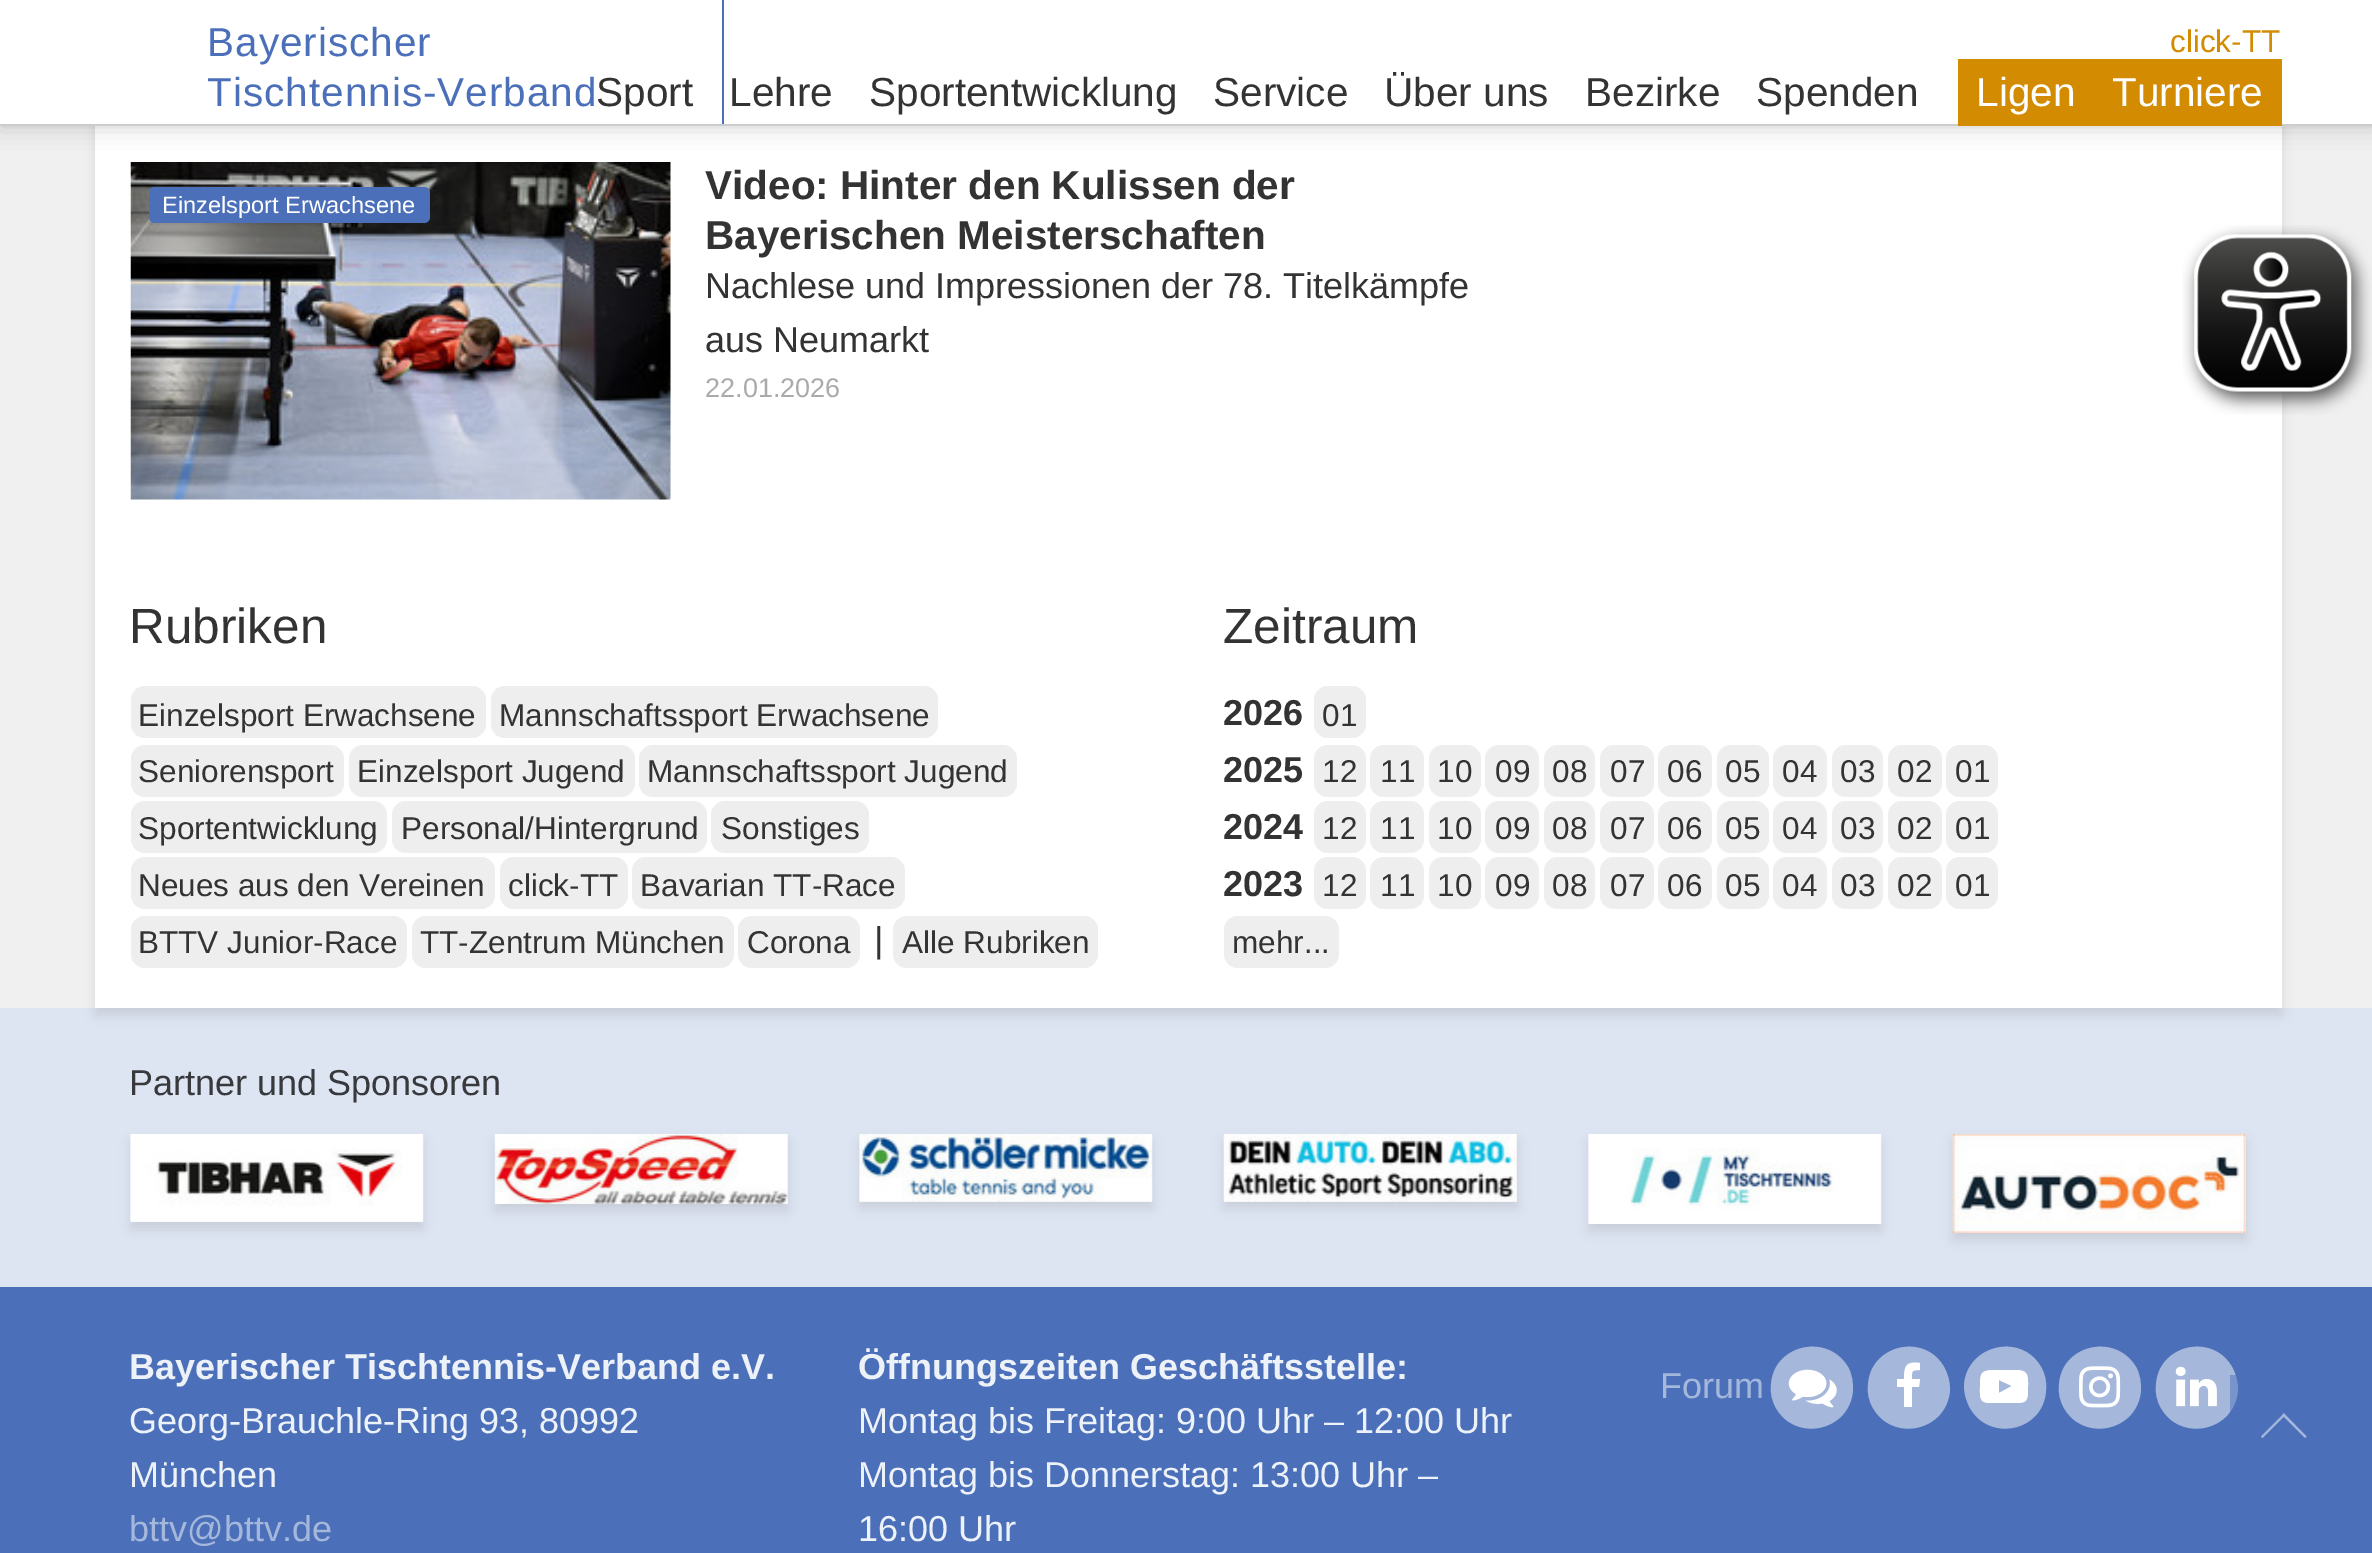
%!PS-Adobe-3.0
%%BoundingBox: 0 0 2372 1553
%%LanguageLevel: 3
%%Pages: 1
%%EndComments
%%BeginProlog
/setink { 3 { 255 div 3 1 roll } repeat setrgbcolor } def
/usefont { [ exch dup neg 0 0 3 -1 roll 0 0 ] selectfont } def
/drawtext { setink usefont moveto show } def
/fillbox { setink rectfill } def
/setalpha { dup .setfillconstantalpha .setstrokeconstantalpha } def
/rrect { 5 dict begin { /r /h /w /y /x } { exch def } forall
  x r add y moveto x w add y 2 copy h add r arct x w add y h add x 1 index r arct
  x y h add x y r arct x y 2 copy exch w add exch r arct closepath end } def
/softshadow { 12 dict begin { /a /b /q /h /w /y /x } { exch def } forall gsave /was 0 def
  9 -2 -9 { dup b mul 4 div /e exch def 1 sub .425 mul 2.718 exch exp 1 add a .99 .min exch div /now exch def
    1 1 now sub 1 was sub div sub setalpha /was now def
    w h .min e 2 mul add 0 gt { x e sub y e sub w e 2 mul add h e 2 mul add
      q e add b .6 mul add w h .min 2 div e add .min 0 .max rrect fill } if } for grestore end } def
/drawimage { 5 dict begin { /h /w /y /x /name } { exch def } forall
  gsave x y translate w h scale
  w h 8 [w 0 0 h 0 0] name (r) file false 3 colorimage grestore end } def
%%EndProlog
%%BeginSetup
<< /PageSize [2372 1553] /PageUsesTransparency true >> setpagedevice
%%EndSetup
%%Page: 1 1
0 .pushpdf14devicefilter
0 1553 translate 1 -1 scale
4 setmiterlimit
0 0 2372 1553 240 240 240 fillbox
0 1008 2372 279 222 229 242 fillbox
0 0 0 setink
95 -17 2187 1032 0 5.5 0.1 softshadow
95 126 2187 882 255 255 255 fillbox
0 0 0 setink
0 0 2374 126 0 11 0.2 softshadow
0 0 2372 124 255 255 255 fillbox
0 124 2372 2 204 204 204 fillbox
722 0 2 124 75 112 185 fillbox
/LiberationSans-Regular 40.5 usefont
207 56 moveto 1 0 (Bayerischer) ashow
207 106 moveto 1 0 (Tischtennis-Verband) ashow
(Sport) 596 106 /LiberationSans-Regular 40.5 51 51 51 drawtext
(Lehre) 729 106 /LiberationSans-Regular 40.5 51 51 51 drawtext
(Sportentwicklung) 869 106 /LiberationSans-Regular 40.5 51 51 51 drawtext
(Service) 1213 106 /LiberationSans-Regular 40.5 51 51 51 drawtext
(Über uns) 1384 106 /LiberationSans-Regular 40.5 51 51 51 drawtext
(Bezirke) 1585 106 /LiberationSans-Regular 40.5 51 51 51 drawtext
(Spenden) 1756 106 /LiberationSans-Regular 40.5 51 51 51 drawtext
1958 59 324 67 211 139 2 fillbox
(click-TT) 2170 52 /LiberationSans-Regular 31.5 211 139 2 drawtext
(Ligen) 1976 106 /LiberationSans-Regular 40.5 255 255 255 drawtext
(Turniere) 2112 106 /LiberationSans-Regular 40.5 255 255 255 drawtext
(assets/img1.rgb) 130 162 541 338 drawimage
75 112 185 setink
149 187 281 36 6 rrect fill
(Einzelsport Erwachsene) 162 213 /LiberationSans-Regular 23.6 255 255 255 drawtext
(Video: Hinter den Kulissen der) 705 199 /LiberationSans-Bold 40.5 51 51 51 drawtext
(Bayerischen Meisterschaften) 705 249 /LiberationSans-Bold 40.5 51 51 51 drawtext
(Nachlese und Impressionen der 78. Titelkämpfe) 705 298 /LiberationSans-Regular 36 51 51 51 drawtext
(aus Neumarkt) 705 352 /LiberationSans-Regular 36 51 51 51 drawtext
(22.01.2026) 705 397 /LiberationSans-Regular 27 170 170 170 drawtext
(Rubriken) 129 643 /LiberationSans-Regular 49.5 51 51 51 drawtext
238 238 238 setink
131 686 355 52 14 rrect fill
(Einzelsport Erwachsene) 138 726 /LiberationSans-Regular 31.5 51 51 51 drawtext
238 238 238 setink
491 686 447 52 14 rrect fill
(Mannschaftssport Erwachsene) 499 726 /LiberationSans-Regular 31.5 51 51 51 drawtext
238 238 238 setink
131 745 213 52 14 rrect fill
(Seniorensport) 138 782 /LiberationSans-Regular 31.5 51 51 51 drawtext
238 238 238 setink
349 745 286 52 14 rrect fill
(Einzelsport Jugend) 357 782 /LiberationSans-Regular 31.5 51 51 51 drawtext
238 238 238 setink
639 745 378 52 14 rrect fill
(Mannschaftssport Jugend) 647 782 /LiberationSans-Regular 31.5 51 51 51 drawtext
238 238 238 setink
131 801 256 52 14 rrect fill
(Sportentwicklung) 138 839 /LiberationSans-Regular 31.5 51 51 51 drawtext
238 238 238 setink
392 801 315 52 14 rrect fill
(Personal/Hintergrund) 401 839 /LiberationSans-Regular 31.5 51 51 51 drawtext
238 238 238 setink
711 801 158 52 14 rrect fill
(Sonstiges) 721 839 /LiberationSans-Regular 31.5 51 51 51 drawtext
238 238 238 setink
131 857 364 52 14 rrect fill
(Neues aus den Vereinen) 138 896 /LiberationSans-Regular 31.5 51 51 51 drawtext
238 238 238 setink
500 857 128 52 14 rrect fill
(click-TT) 508 896 /LiberationSans-Regular 31.5 51 51 51 drawtext
238 238 238 setink
632 857 273 52 14 rrect fill
(Bavarian TT-Race) 640 896 /LiberationSans-Regular 31.5 51 51 51 drawtext
238 238 238 setink
131 916 276 52 14 rrect fill
(BTTV Junior-Race) 138 953 /LiberationSans-Regular 31.5 51 51 51 drawtext
238 238 238 setink
412 916 322 52 14 rrect fill
(TT-Zentrum München) 420 953 /LiberationSans-Regular 31.5 51 51 51 drawtext
238 238 238 setink
738 916 122 52 14 rrect fill
(Corona) 747 953 /LiberationSans-Regular 31.5 51 51 51 drawtext
(|) 874 952 /LiberationSans-Regular 36 51 51 51 drawtext
238 238 238 setink
893 916 205 52 14 rrect fill
(Alle Rubriken) 902 953 /LiberationSans-Regular 31.5 51 51 51 drawtext
(Zeitraum) 1223 643 /LiberationSans-Regular 49.5 51 51 51 drawtext
(2026) 1223 725 /LiberationSans-Bold 36 51 51 51 drawtext
238 238 238 setink
1314 686 52 52 14 rrect fill
(01) 1322 726 /LiberationSans-Regular 31.5 51 51 51 drawtext
(2025) 1223 782 /LiberationSans-Bold 36 51 51 51 drawtext
238 238 238 setink
1314 745 52 52 14 rrect fill
(12) 1322 782 /LiberationSans-Regular 31.5 51 51 51 drawtext
238 238 238 setink
1370 745 54 52 14 rrect fill
(11) 1380 782 /LiberationSans-Regular 31.5 51 51 51 drawtext
238 238 238 setink
1429 745 52 52 14 rrect fill
(10) 1437 782 /LiberationSans-Regular 31.5 51 51 51 drawtext
238 238 238 setink
1485 745 54 52 14 rrect fill
(09) 1495 782 /LiberationSans-Regular 31.5 51 51 51 drawtext
238 238 238 setink
1544 745 51 52 14 rrect fill
(08) 1552 782 /LiberationSans-Regular 31.5 51 51 51 drawtext
238 238 238 setink
1600 745 54 52 14 rrect fill
(07) 1610 782 /LiberationSans-Regular 31.5 51 51 51 drawtext
238 238 238 setink
1658 745 54 52 14 rrect fill
(06) 1667 782 /LiberationSans-Regular 31.5 51 51 51 drawtext
238 238 238 setink
1717 745 52 52 14 rrect fill
(05) 1725 782 /LiberationSans-Regular 31.5 51 51 51 drawtext
238 238 238 setink
1773 745 54 52 14 rrect fill
(04) 1782 782 /LiberationSans-Regular 31.5 51 51 51 drawtext
238 238 238 setink
1832 745 51 52 14 rrect fill
(03) 1840 782 /LiberationSans-Regular 31.5 51 51 51 drawtext
238 238 238 setink
1888 745 54 52 14 rrect fill
(02) 1897 782 /LiberationSans-Regular 31.5 51 51 51 drawtext
238 238 238 setink
1946 745 52 52 14 rrect fill
(01) 1955 782 /LiberationSans-Regular 31.5 51 51 51 drawtext
(2024) 1223 839 /LiberationSans-Bold 36 51 51 51 drawtext
238 238 238 setink
1314 801 52 52 14 rrect fill
(12) 1322 839 /LiberationSans-Regular 31.5 51 51 51 drawtext
238 238 238 setink
1370 801 54 52 14 rrect fill
(11) 1380 839 /LiberationSans-Regular 31.5 51 51 51 drawtext
238 238 238 setink
1429 801 52 52 14 rrect fill
(10) 1437 839 /LiberationSans-Regular 31.5 51 51 51 drawtext
238 238 238 setink
1485 801 54 52 14 rrect fill
(09) 1495 839 /LiberationSans-Regular 31.5 51 51 51 drawtext
238 238 238 setink
1544 801 51 52 14 rrect fill
(08) 1552 839 /LiberationSans-Regular 31.5 51 51 51 drawtext
238 238 238 setink
1600 801 54 52 14 rrect fill
(07) 1610 839 /LiberationSans-Regular 31.5 51 51 51 drawtext
238 238 238 setink
1658 801 54 52 14 rrect fill
(06) 1667 839 /LiberationSans-Regular 31.5 51 51 51 drawtext
238 238 238 setink
1717 801 52 52 14 rrect fill
(05) 1725 839 /LiberationSans-Regular 31.5 51 51 51 drawtext
238 238 238 setink
1773 801 54 52 14 rrect fill
(04) 1782 839 /LiberationSans-Regular 31.5 51 51 51 drawtext
238 238 238 setink
1832 801 51 52 14 rrect fill
(03) 1840 839 /LiberationSans-Regular 31.5 51 51 51 drawtext
238 238 238 setink
1888 801 54 52 14 rrect fill
(02) 1897 839 /LiberationSans-Regular 31.5 51 51 51 drawtext
238 238 238 setink
1946 801 52 52 14 rrect fill
(01) 1955 839 /LiberationSans-Regular 31.5 51 51 51 drawtext
(2023) 1223 896 /LiberationSans-Bold 36 51 51 51 drawtext
238 238 238 setink
1314 857 52 52 14 rrect fill
(12) 1322 896 /LiberationSans-Regular 31.5 51 51 51 drawtext
238 238 238 setink
1370 857 54 52 14 rrect fill
(11) 1380 896 /LiberationSans-Regular 31.5 51 51 51 drawtext
238 238 238 setink
1429 857 52 52 14 rrect fill
(10) 1437 896 /LiberationSans-Regular 31.5 51 51 51 drawtext
238 238 238 setink
1485 857 54 52 14 rrect fill
(09) 1495 896 /LiberationSans-Regular 31.5 51 51 51 drawtext
238 238 238 setink
1544 857 51 52 14 rrect fill
(08) 1552 896 /LiberationSans-Regular 31.5 51 51 51 drawtext
238 238 238 setink
1600 857 54 52 14 rrect fill
(07) 1610 896 /LiberationSans-Regular 31.5 51 51 51 drawtext
238 238 238 setink
1658 857 54 52 14 rrect fill
(06) 1667 896 /LiberationSans-Regular 31.5 51 51 51 drawtext
238 238 238 setink
1717 857 52 52 14 rrect fill
(05) 1725 896 /LiberationSans-Regular 31.5 51 51 51 drawtext
238 238 238 setink
1773 857 54 52 14 rrect fill
(04) 1782 896 /LiberationSans-Regular 31.5 51 51 51 drawtext
238 238 238 setink
1832 857 51 52 14 rrect fill
(03) 1840 896 /LiberationSans-Regular 31.5 51 51 51 drawtext
238 238 238 setink
1888 857 54 52 14 rrect fill
(02) 1897 896 /LiberationSans-Regular 31.5 51 51 51 drawtext
238 238 238 setink
1946 857 52 52 14 rrect fill
(01) 1955 896 /LiberationSans-Regular 31.5 51 51 51 drawtext
238 238 238 setink
1224 916 115 52 14 rrect fill
(mehr...) 1232 953 /LiberationSans-Regular 31.5 51 51 51 drawtext
(Partner und Sponsoren) 129 1095 /LiberationSans-Regular 36 56 57 61 drawtext
0 0 0 setink
131 1141 292 88 0 5.5 0.1 softshadow
131 1134 292 88 238 238 238 fillbox
(assets/img2.rgb) 130 1134 294 88 drawimage
0 0 0 setink
495 1141 293 70 0 5.5 0.1 softshadow
495 1134 293 70 238 238 238 fillbox
(assets/img3.rgb) 494 1134 294 70 drawimage
0 0 0 setink
860 1141 292 67 0 5.5 0.1 softshadow
860 1134 292 68 238 238 238 fillbox
(assets/img4.rgb) 859 1134 294 68 drawimage
0 0 0 setink
1224 1141 293 67 0 5.5 0.1 softshadow
1224 1134 293 68 238 238 238 fillbox
(assets/img5.rgb) 1223 1134 294 68 drawimage
0 0 0 setink
1589 1141 292 90 0 5.5 0.1 softshadow
(assets/img6.rgb) 1588 1134 294 90 drawimage
1953 1141 293 99 0 5.5 0.1 softshadow
1953 1134 293 99 238 238 238 fillbox
(assets/img7.rgb) 1952 1134 294 99 drawimage
0 1287 2372 266 75 112 185 fillbox
(Bayerischer Tischtennis-Verband e.V.) 129 1379 /LiberationSans-Bold 36 237 241 248 drawtext
(Georg-Brauchle-Ring 93, 80992) 129 1433 /LiberationSans-Regular 36 237 241 248 drawtext
(München) 129 1487 /LiberationSans-Regular 36 237 241 248 drawtext
(bttv@bttv.de) 129 1541 /LiberationSans-Regular 36 165 184 220 drawtext
(Öffnungszeiten Geschäftsstelle:) 858 1379 /LiberationSans-Bold 36 237 241 248 drawtext
(Montag bis Freitag: 9:00 Uhr – 12:00 Uhr) 858 1433 /LiberationSans-Regular 36 237 241 248 drawtext
(Montag bis Donnerstag: 13:00 Uhr –) 858 1487 /LiberationSans-Regular 36 237 241 248 drawtext
(16:00 Uhr) 858 1541 /LiberationSans-Regular 36 237 241 248 drawtext
(Forum) 1660 1398 /LiberationSans-Regular 36 165 184 220 drawtext
1848 1367 moveto 1852 1374 1853 1382 1853 1390 curveto 1850 1431 1796 1443 1776 1408 curveto 1772 1401 1770 1393 1771 1385 curveto 1773 1345 1827 1332 1848 1367 curveto closepath fill
(assets/img8.rgb) 1788 1369 49 39 drawimage
1944 1367 moveto 1948 1374 1950 1382 1950 1390 curveto 1947 1431 1893 1443 1873 1408 curveto 1869 1401 1867 1393 1868 1385 curveto 1870 1345 1924 1332 1944 1367 curveto closepath fill
255 255 255 setink
1920 1363 moveto 1920 1370 lineto 1911 1370 1912 1371 1912 1379 curveto 1920 1379 lineto 1919 1387 lineto 1912 1387 lineto 1912 1407 lineto 1904 1407 lineto 1904 1387 lineto 1897 1387 lineto 1897 1379 lineto 1904 1379 lineto 1904 1366 1906 1361 1920 1363 curveto closepath fill
165 184 220 setink
2041 1367 moveto 2045 1374 2047 1382 2046 1390 curveto 2044 1431 1990 1443 1970 1408 curveto 1966 1401 1964 1393 1964 1385 curveto 1967 1345 2021 1332 2041 1367 curveto closepath fill
255 255 255 setink
1999 1393 moveto 2012 1386 lineto 1999 1380 lineto closepath 2004 1370 moveto 2018 1370 lineto 2029 1371 2028 1377 2028 1387 curveto 2028 1399 2028 1403 2017 1403 curveto 1990 1403 lineto 1979 1403 1980 1397 1980 1387 curveto 1980 1375 1980 1371 1991 1370 curveto closepath fill
165 184 220 setink
2136 1367 moveto 2140 1374 2141 1382 2141 1390 curveto 2138 1431 2084 1443 2064 1408 curveto 2060 1401 2058 1393 2059 1385 curveto 2061 1345 2115 1332 2136 1367 curveto closepath fill
(assets/img9.rgb) 2079 1366 42 42 drawimage
2232 1367 moveto 2236 1374 2238 1382 2238 1390 curveto 2235 1431 2181 1443 2161 1408 curveto 2157 1401 2155 1393 2156 1385 curveto 2158 1345 2212 1332 2232 1367 curveto closepath fill
(assets/img10.rgb) 2175 1366 42 41 drawimage
0.5 setalpha
2230 1375 8 37 75 112 185 fillbox
1 setalpha
165 184 220 setink
2284 1413.5 moveto 2306.5 1436.5 lineto 2305 1438 lineto 2282 1415 lineto closepath fill
2284 1413.5 moveto 2285.5 1415 lineto 2262.5 1438 lineto 2261 1436.5 lineto closepath fill
(assets/img11.rgb) 2182 225 190 190 drawimage
.poppdf14devicefilter showpage
%%EOF
